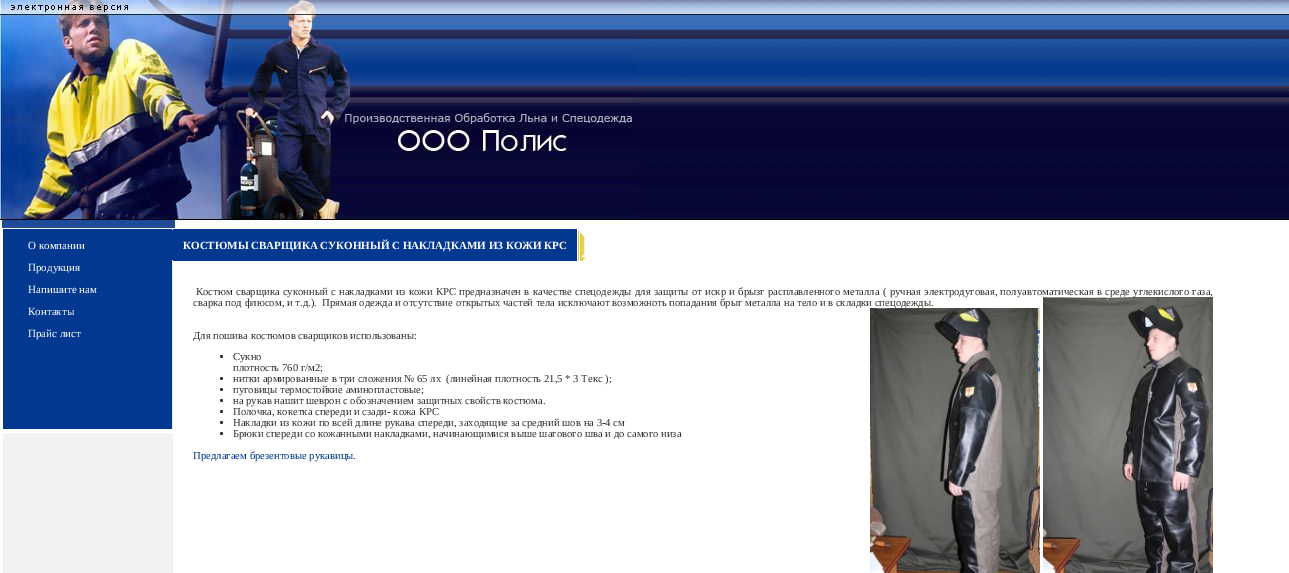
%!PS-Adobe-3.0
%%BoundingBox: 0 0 1289 573
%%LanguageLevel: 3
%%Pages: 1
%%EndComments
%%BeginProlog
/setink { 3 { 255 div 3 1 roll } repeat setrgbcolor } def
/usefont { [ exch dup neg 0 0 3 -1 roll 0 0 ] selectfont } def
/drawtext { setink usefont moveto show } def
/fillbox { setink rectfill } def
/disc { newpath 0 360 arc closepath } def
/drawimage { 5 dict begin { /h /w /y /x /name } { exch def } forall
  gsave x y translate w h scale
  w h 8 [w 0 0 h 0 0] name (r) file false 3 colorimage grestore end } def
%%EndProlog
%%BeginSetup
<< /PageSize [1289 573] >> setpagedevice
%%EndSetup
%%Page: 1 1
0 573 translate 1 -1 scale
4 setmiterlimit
0 0 1289 573 255 255 255 fillbox
(assets/img1.rgb) 0 0 636 229 drawimage
(assets/img2.rgb) 636 0 653 27 drawimage
(assets/img3.rgb) 636 27 653 193 drawimage
3 229 170 200 2 56 143 fillbox
(assets/img4.rgb) 172 229 1 200 drawimage
(О компании) 28 249 /LiberationSerif-Regular 11 255 255 255 drawtext
(Продукция) 28 271 /LiberationSerif-Regular 11 255 255 255 drawtext
(Напишите нам) 28 293 /LiberationSerif-Regular 11 255 255 255 drawtext
(Контакты) 28 315 /LiberationSerif-Regular 11 255 255 255 drawtext
(Прайс лист) 28 337 /LiberationSerif-Regular 11 255 255 255 drawtext
3 433 170 140 242 242 242 fillbox
173 229 404 32 2 56 143 fillbox
(КОСТЮМЫ СВАРЩИКА СУКОННЫЙ С НАКЛАДКАМИ ИЗ КОЖИ КРС) 183 249 /LiberationSerif-Bold 11 255 255 255 drawtext
(assets/img5.rgb) 578 230 7 31 drawimage
(assets/img6.rgb) 1043 297 170 276 drawimage
/LiberationSerif-Regular 10.67 usefont
51 51 51 setink
196 295 moveto 0.6 0 32 (Костюм сварщика суконный c накладками из кожи КРС предназначен в качестве спецодежды для защиты от искр и брызг расплавленного металла \( ручная электродуговая, полуавтоматическая в среде углекислого газа,) widthshow
(assets/img7.rgb) 870 308 170 265 drawimage
(сварка под флюсом, и т.д.\).  Прямая одежда и отсутствие открытых частей тела исключают возможноть попадания брыг металла на тело и в складки спецодежды.) 193 306 /LiberationSerif-Regular 10.67 51 51 51 drawtext
(Для пошива костюмов сварщиков использованы:) 193 339 /LiberationSerif-Regular 10.67 51 51 51 drawtext
221.5 356.5 1.5 disc fill
(Сукно) 233 360 /LiberationSerif-Regular 10.67 51 51 51 drawtext
(плотность 760 г/м2;) 233 371 /LiberationSerif-Regular 10.67 51 51 51 drawtext
221.5 378.5 1.5 disc fill
(нитки армированные в три сложения № 65 лх  \(линейная плотность 21,5 * 3 Текс \);) 233 382 /LiberationSerif-Regular 10.67 51 51 51 drawtext
221.5 389.5 1.5 disc fill
(пуговицы термостойкие аминопластовые;) 233 393 /LiberationSerif-Regular 10.67 51 51 51 drawtext
221.5 400.5 1.5 disc fill
(на рукав нашит шеврон с обозначением защитных свойств костюма.) 233 404 /LiberationSerif-Regular 10.67 51 51 51 drawtext
221.5 411.5 1.5 disc fill
(Полочка, кокетка спереди и сзади- кожа КРС) 233 415 /LiberationSerif-Regular 10.67 51 51 51 drawtext
221.5 422.5 1.5 disc fill
(Накладки из кожи по всей длине рукава спереди, заходящие за средний шов на 3-4 см) 233 426 /LiberationSerif-Regular 10.67 51 51 51 drawtext
221.5 433.5 1.5 disc fill
(Брюки спереди со кожанными накладками, начинающимися выше шагового шва и до самого низа) 233 437 /LiberationSerif-Regular 10.67 51 51 51 drawtext
(Предлагаем брезентовые рукавицы.) 193 459 /LiberationSerif-Regular 10.67 2 56 143 drawtext
showpage
%%EOF
